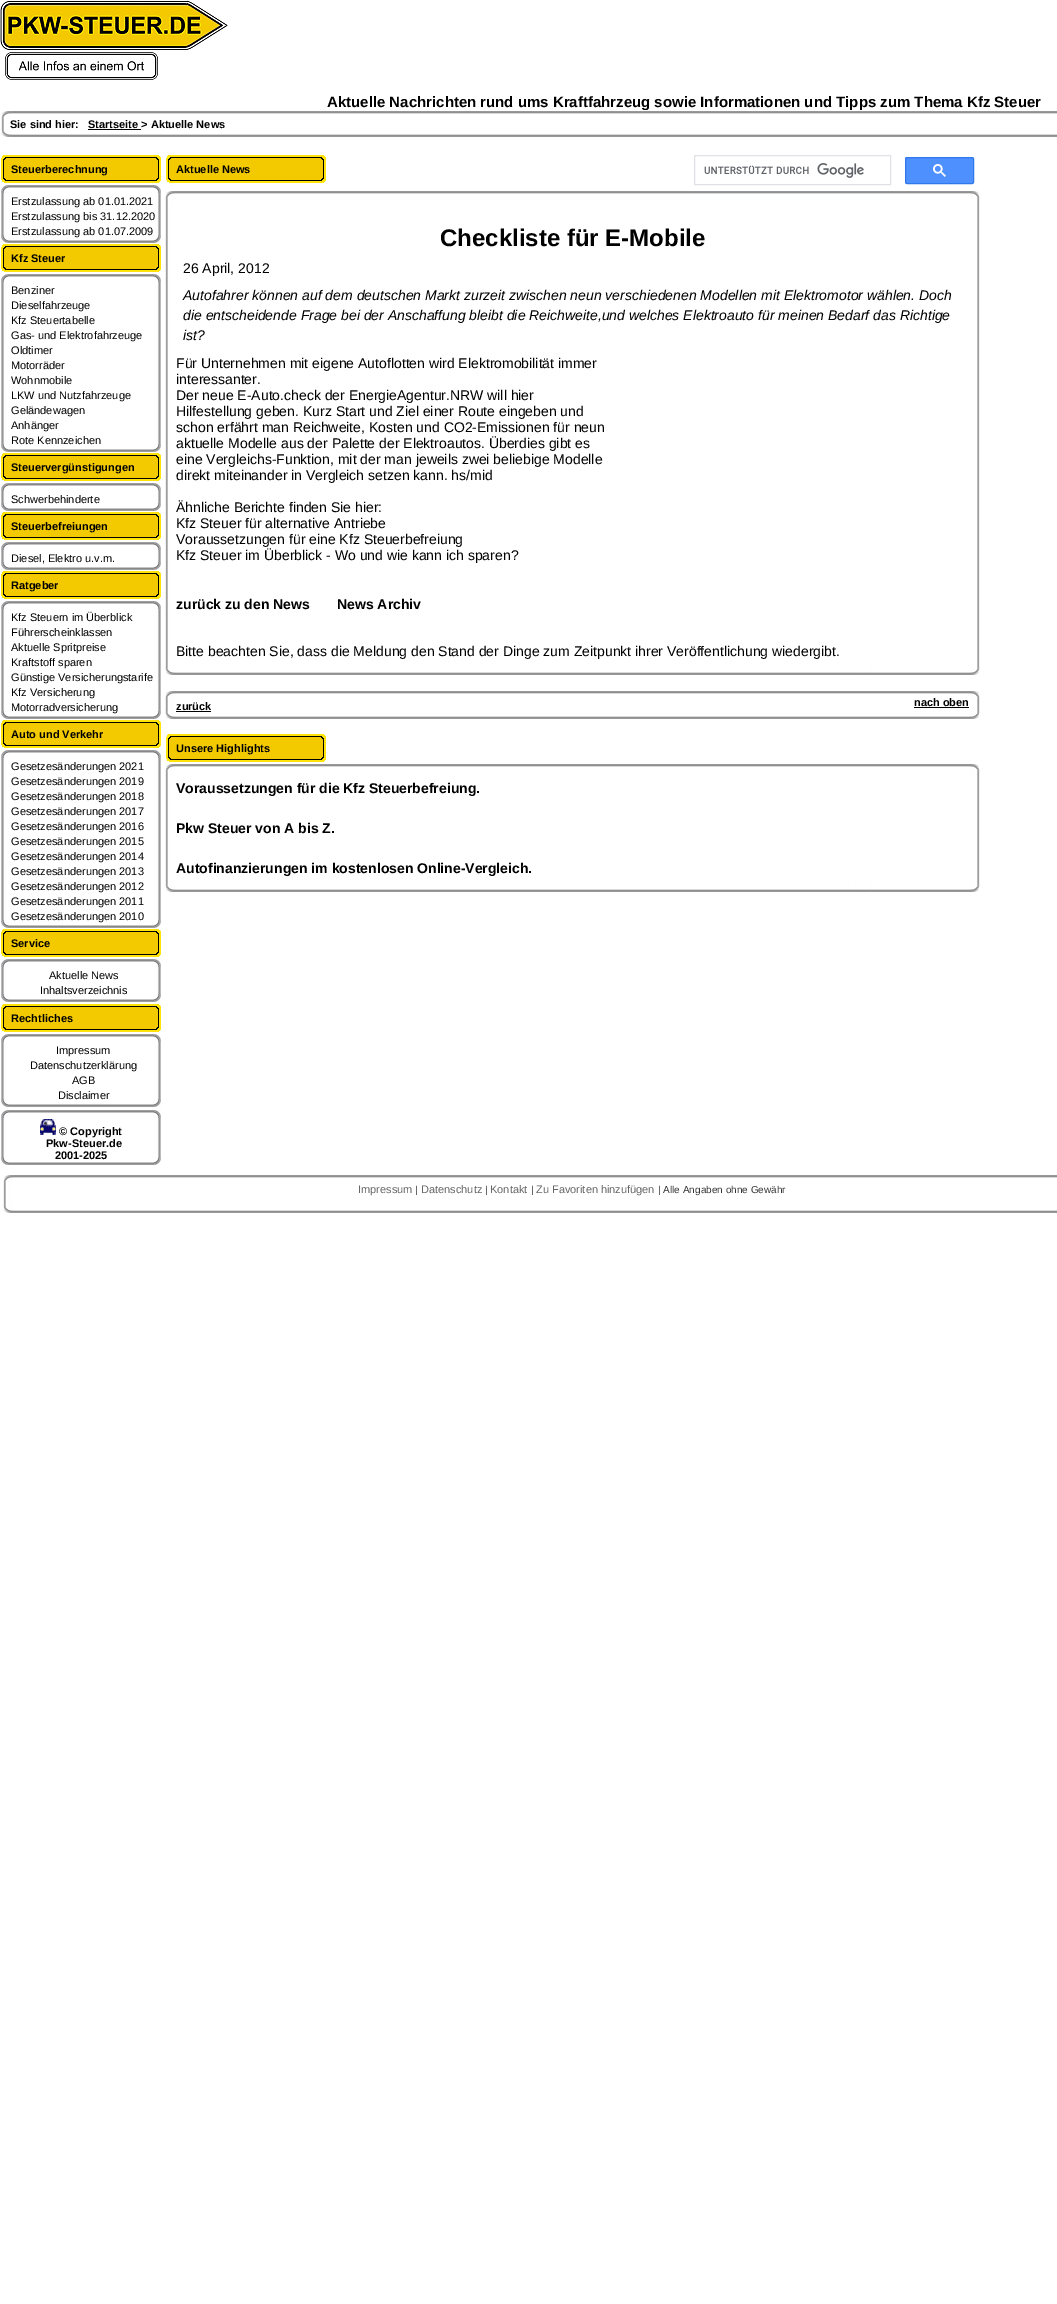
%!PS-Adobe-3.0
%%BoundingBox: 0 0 1057 2304
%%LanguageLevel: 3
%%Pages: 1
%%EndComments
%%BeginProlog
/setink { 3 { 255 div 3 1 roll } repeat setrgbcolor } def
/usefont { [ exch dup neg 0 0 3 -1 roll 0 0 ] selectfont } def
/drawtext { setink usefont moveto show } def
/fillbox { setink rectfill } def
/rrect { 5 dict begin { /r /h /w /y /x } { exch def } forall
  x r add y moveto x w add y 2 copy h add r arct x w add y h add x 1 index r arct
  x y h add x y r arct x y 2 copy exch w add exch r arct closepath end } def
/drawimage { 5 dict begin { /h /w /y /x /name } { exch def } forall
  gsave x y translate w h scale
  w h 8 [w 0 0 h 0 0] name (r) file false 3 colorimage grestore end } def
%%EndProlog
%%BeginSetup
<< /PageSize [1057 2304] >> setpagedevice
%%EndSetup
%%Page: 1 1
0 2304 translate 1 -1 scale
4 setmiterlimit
0 0 1057 2304 255 255 255 fillbox
(assets/img1.rgb) 0 0 228 80 drawimage
(Aktuelle Nachrichten rund ums Kraftfahrzeug sowie Informationen und Tipps zum Thema Kfz Steuer) 327 107 /LiberationSans-Bold 15 0 0 0 drawtext
644 110 218 1 255 255 255 fillbox
(assets/img2.rgb) 1 111 1056 26 drawimage
(Sie sind hier:) 10 128 /LiberationSans-Bold 11 0 0 0 drawtext
(Startseite > Aktuelle News) 88 128 /LiberationSans-Bold 11 0 0 0 drawtext
88 129 53 1 0 0 0 fillbox
(assets/img3.rgb) 1 155 160 28 drawimage
(Steuerberechnung) 11 173 /LiberationSans-Bold 11 0 0 0 drawtext
(assets/img4.rgb) 1 185 160 50 drawimage
(assets/img5.rgb) 1 235 160 9 drawimage
6 236 150 1 255 255 255 fillbox
(Erstzulassung ab 01.01.2021) 11 205 /LiberationSans-Regular 11 0 0 0 drawtext
(Erstzulassung bis 31.12.2020) 11 220 /LiberationSans-Regular 11 0 0 0 drawtext
(Erstzulassung ab 01.07.2009) 11 235 /LiberationSans-Regular 11 0 0 0 drawtext
(assets/img3.rgb) 1 244 160 28 drawimage
(Kfz Steuer) 11 262 /LiberationSans-Bold 11 0 0 0 drawtext
(assets/img6.rgb) 1 274 160 101 drawimage
(assets/img7.rgb) 1 375 160 77 drawimage
6 445 150 1 255 255 255 fillbox
(Benziner) 11 294 /LiberationSans-Regular 11 0 0 0 drawtext
(Dieselfahrzeuge) 11 309 /LiberationSans-Regular 11 0 0 0 drawtext
(Kfz Steuertabelle) 11 324 /LiberationSans-Regular 11 0 0 0 drawtext
(Gas- und Elektrofahrzeuge) 11 339 /LiberationSans-Regular 11 0 0 0 drawtext
(Oldtimer) 11 354 /LiberationSans-Regular 11 0 0 0 drawtext
(Motorräder) 11 369 /LiberationSans-Regular 11 0 0 0 drawtext
(Wohnmobile) 11 384 /LiberationSans-Regular 11 0 0 0 drawtext
(LKW und Nutzfahrzeuge) 11 399 /LiberationSans-Regular 11 0 0 0 drawtext
(Geländewagen) 11 414 /LiberationSans-Regular 11 0 0 0 drawtext
(Anhänger) 11 429 /LiberationSans-Regular 11 0 0 0 drawtext
(Rote Kennzeichen) 11 444 /LiberationSans-Regular 11 0 0 0 drawtext
(assets/img3.rgb) 1 453 160 28 drawimage
(Steuervergünstigungen) 11 471 /LiberationSans-Bold 11 0 0 0 drawtext
(assets/img8.rgb) 1 483 160 20 drawimage
(assets/img5.rgb) 1 503 160 9 drawimage
6 504 150 1 255 255 255 fillbox
(Schwerbehinderte) 11 503 /LiberationSans-Regular 11 0 0 0 drawtext
(assets/img3.rgb) 1 512 160 28 drawimage
(Steuerbefreiungen) 11 530 /LiberationSans-Bold 11 0 0 0 drawtext
(assets/img8.rgb) 1 542 160 20 drawimage
(assets/img5.rgb) 1 562 160 9 drawimage
6 563 150 1 255 255 255 fillbox
(Diesel, Elektro u.v.m.) 11 562 /LiberationSans-Regular 11 0 0 0 drawtext
(assets/img3.rgb) 1 571 160 28 drawimage
(Ratgeber) 11 589 /LiberationSans-Bold 11 0 0 0 drawtext
(assets/img6.rgb) 1 601 160 101 drawimage
(assets/img9.rgb) 1 702 160 17 drawimage
6 712 150 1 255 255 255 fillbox
(Kfz Steuern im Überblick) 11 621 /LiberationSans-Regular 11 0 0 0 drawtext
(Führerscheinklassen) 11 636 /LiberationSans-Regular 11 0 0 0 drawtext
(Aktuelle Spritpreise) 11 651 /LiberationSans-Regular 11 0 0 0 drawtext
(Kraftstoff sparen) 11 666 /LiberationSans-Regular 11 0 0 0 drawtext
(Günstige Versicherungstarife) 11 681 /LiberationSans-Regular 11 0 0 0 drawtext
(Kfz Versicherung) 11 696 /LiberationSans-Regular 11 0 0 0 drawtext
(Motorradversicherung) 11 711 /LiberationSans-Regular 11 0 0 0 drawtext
(assets/img3.rgb) 1 720 160 28 drawimage
(Auto und Verkehr) 11 738 /LiberationSans-Bold 11 0 0 0 drawtext
(assets/img6.rgb) 1 750 160 101 drawimage
(assets/img7.rgb) 1 851 160 77 drawimage
6 921 150 1 255 255 255 fillbox
(Gesetzesänderungen 2021) 11 770 /LiberationSans-Regular 11 0 0 0 drawtext
(Gesetzesänderungen 2019) 11 785 /LiberationSans-Regular 11 0 0 0 drawtext
(Gesetzesänderungen 2018) 11 800 /LiberationSans-Regular 11 0 0 0 drawtext
(Gesetzesänderungen 2017) 11 815 /LiberationSans-Regular 11 0 0 0 drawtext
(Gesetzesänderungen 2016) 11 830 /LiberationSans-Regular 11 0 0 0 drawtext
(Gesetzesänderungen 2015) 11 845 /LiberationSans-Regular 11 0 0 0 drawtext
(Gesetzesänderungen 2014) 11 860 /LiberationSans-Regular 11 0 0 0 drawtext
(Gesetzesänderungen 2013) 11 875 /LiberationSans-Regular 11 0 0 0 drawtext
(Gesetzesänderungen 2012) 11 890 /LiberationSans-Regular 11 0 0 0 drawtext
(Gesetzesänderungen 2011) 11 905 /LiberationSans-Regular 11 0 0 0 drawtext
(Gesetzesänderungen 2010) 11 920 /LiberationSans-Regular 11 0 0 0 drawtext
(assets/img3.rgb) 1 929 160 28 drawimage
(Service) 11 947 /LiberationSans-Bold 11 0 0 0 drawtext
(assets/img10.rgb) 1 959 160 35 drawimage
(assets/img5.rgb) 1 994 160 9 drawimage
6 995 150 1 255 255 255 fillbox
(Aktuelle News) 49 979 /LiberationSans-Regular 11 0 0 0 drawtext
(Inhaltsverzeichnis) 40 994 /LiberationSans-Regular 11 0 0 0 drawtext
(assets/img3.rgb) 1 1004 160 28 drawimage
(Rechtliches) 11 1022 /LiberationSans-Bold 11 0 0 0 drawtext
(assets/img11.rgb) 1 1034 160 65 drawimage
(assets/img5.rgb) 1 1099 160 9 drawimage
6 1100 150 1 255 255 255 fillbox
(Impressum) 56 1054 /LiberationSans-Regular 11 0 0 0 drawtext
(Datenschutzerklärung) 30 1069 /LiberationSans-Regular 11 0 0 0 drawtext
(AGB) 72 1084 /LiberationSans-Regular 11 0 0 0 drawtext
(Disclaimer) 58 1099 /LiberationSans-Regular 11 0 0 0 drawtext
(assets/img12.rgb) 1 1110 160 47 drawimage
(assets/img5.rgb) 1 1157 160 9 drawimage
6 1158 150 1 255 255 255 fillbox
(assets/img13.rgb) 40 1119 16 16 drawimage
(© Copyright) 59 1135 /LiberationSans-Bold 11 0 0 0 drawtext
(Pkw-Steuer.de) 46 1147 /LiberationSans-Bold 11 0 0 0 drawtext
(2001-2025) 55 1159 /LiberationSans-Bold 11 0 0 0 drawtext
(assets/img3.rgb) 166 155 160 28 drawimage
(Aktuelle News) 176 173 /LiberationSans-Bold 11 0 0 0 drawtext
223 225 229 setink
694.5 155.5 196 29 rectstroke
(assets/img14.rgb) 704 163 160 15 drawimage
77 144 254 setink
905.5 157.5 68 26 1.5 rrect gsave fill grestore
48 121 237 setink
stroke
(assets/img15.rgb) 933 164 13 13 drawimage
(assets/img16.rgb) 165 191 815 14 drawimage
(assets/img17.rgb) 165 205 815 456 drawimage
(Checkliste für E-Mobile) 440 246 /LiberationSans-Bold 24 0 0 0 drawtext
(26 April, 2012) 183 273 /LiberationSans-Regular 14 0 0 0 drawtext
(Autofahrer können auf dem deutschen Markt zurzeit zwischen neun verschiedenen Modellen mit Elektromotor wählen. Doch) 183 300 /LiberationSans-Italic 14 0 0 0 drawtext
(die entscheidende Frage bei der Anschaffung bleibt die Reichweite,und welches Elektroauto für meinen Bedarf das Richtige) 183 320 /LiberationSans-Italic 14 0 0 0 drawtext
(ist?) 183 340 /LiberationSans-Italic 14 0 0 0 drawtext
(Für Unternehmen mit eigene Autoflotten wird Elektromobilität immer) 176 368 /LiberationSans-Regular 14 0 0 0 drawtext
(interessanter.) 176 384 /LiberationSans-Regular 14 0 0 0 drawtext
(Der neue E-Auto.check der EnergieAgentur.NRW will hier) 176 400 /LiberationSans-Regular 14 0 0 0 drawtext
(Hilfestellung geben. Kurz Start und Ziel einer Route eingeben und) 176 416 /LiberationSans-Regular 14 0 0 0 drawtext
(schon erfährt man Reichweite, Kosten und CO2-Emissionen für neun) 176 432 /LiberationSans-Regular 14 0 0 0 drawtext
(aktuelle Modelle aus der Palette der Elektroautos. Überdies gibt es) 176 448 /LiberationSans-Regular 14 0 0 0 drawtext
(eine Vergleichs-Funktion, mit der man jeweils zwei beliebige Modelle) 176 464 /LiberationSans-Regular 14 0 0 0 drawtext
(direkt miteinander in Vergleich setzen kann. hs/mid) 176 480 /LiberationSans-Regular 14 0 0 0 drawtext
(Ähnliche Berichte finden Sie hier:) 176 512 /LiberationSans-Regular 14 0 0 0 drawtext
(Kfz Steuer für alternative Antriebe) 176 528 /LiberationSans-Regular 14 0 0 0 drawtext
(Voraussetzungen für eine Kfz Steuerbefreiung) 176 544 /LiberationSans-Regular 14 0 0 0 drawtext
(Kfz Steuer im Überblick - Wo und wie kann ich sparen?) 176 560 /LiberationSans-Regular 14 0 0 0 drawtext
(zurück zu den News) 176 609 /LiberationSans-Bold 14 0 0 0 drawtext
(News Archiv) 337 609 /LiberationSans-Bold 14 0 0 0 drawtext
(Bitte beachten Sie, dass die Meldung den Stand der Dinge zum Zeitpunkt ihrer Veröffentlichung wiedergibt.) 176 656 /LiberationSans-Regular 14 0 0 0 drawtext
(assets/img18.rgb) 165 661 815 14 drawimage
(assets/img19.rgb) 165 691 815 28 drawimage
(zurück) 176 710 /LiberationSans-Bold 11 0 0 0 drawtext
176 711 35 1 0 0 0 fillbox
(nach oben) 914 706 /LiberationSans-Bold 11 0 0 0 drawtext
914 707 55 1 0 0 0 fillbox
(assets/img3.rgb) 166 734 160 28 drawimage
(Unsere Highlights) 176 752 /LiberationSans-Bold 11 0 0 0 drawtext
(assets/img16.rgb) 165 764 815 14 drawimage
(assets/img20.rgb) 165 778 815 100 drawimage
(Voraussetzungen für die Kfz Steuerbefreiung.) 176 793 /LiberationSans-Bold 14 0 0 0 drawtext
(Pkw Steuer von A bis Z.) 176 833 /LiberationSans-Bold 14 0 0 0 drawtext
(Autofinanzierungen im kostenlosen Online-Vergleich.) 176 873 /LiberationSans-Bold 14 0 0 0 drawtext
(assets/img18.rgb) 165 878 815 14 drawimage
(assets/img21.rgb) 3 1175 1054 38 drawimage
(Impressum) 358 1193 /LiberationSans-Regular 11 102 102 102 drawtext
(|) 415 1193 /LiberationSans-Regular 10 51 51 51 drawtext
(Datenschutz) 421 1193 /LiberationSans-Regular 11 102 102 102 drawtext
(|) 485 1193 /LiberationSans-Regular 10 51 51 51 drawtext
(Kontakt) 490 1193 /LiberationSans-Regular 11 102 102 102 drawtext
(|) 531 1193 /LiberationSans-Regular 10 51 51 51 drawtext
(Zu Favoriten hinzufügen) 536 1193 /LiberationSans-Regular 11 102 102 102 drawtext
(| Alle Angaben ohne Gewähr) 658 1193 /LiberationSans-Regular 10 51 51 51 drawtext
showpage
%%EOF
